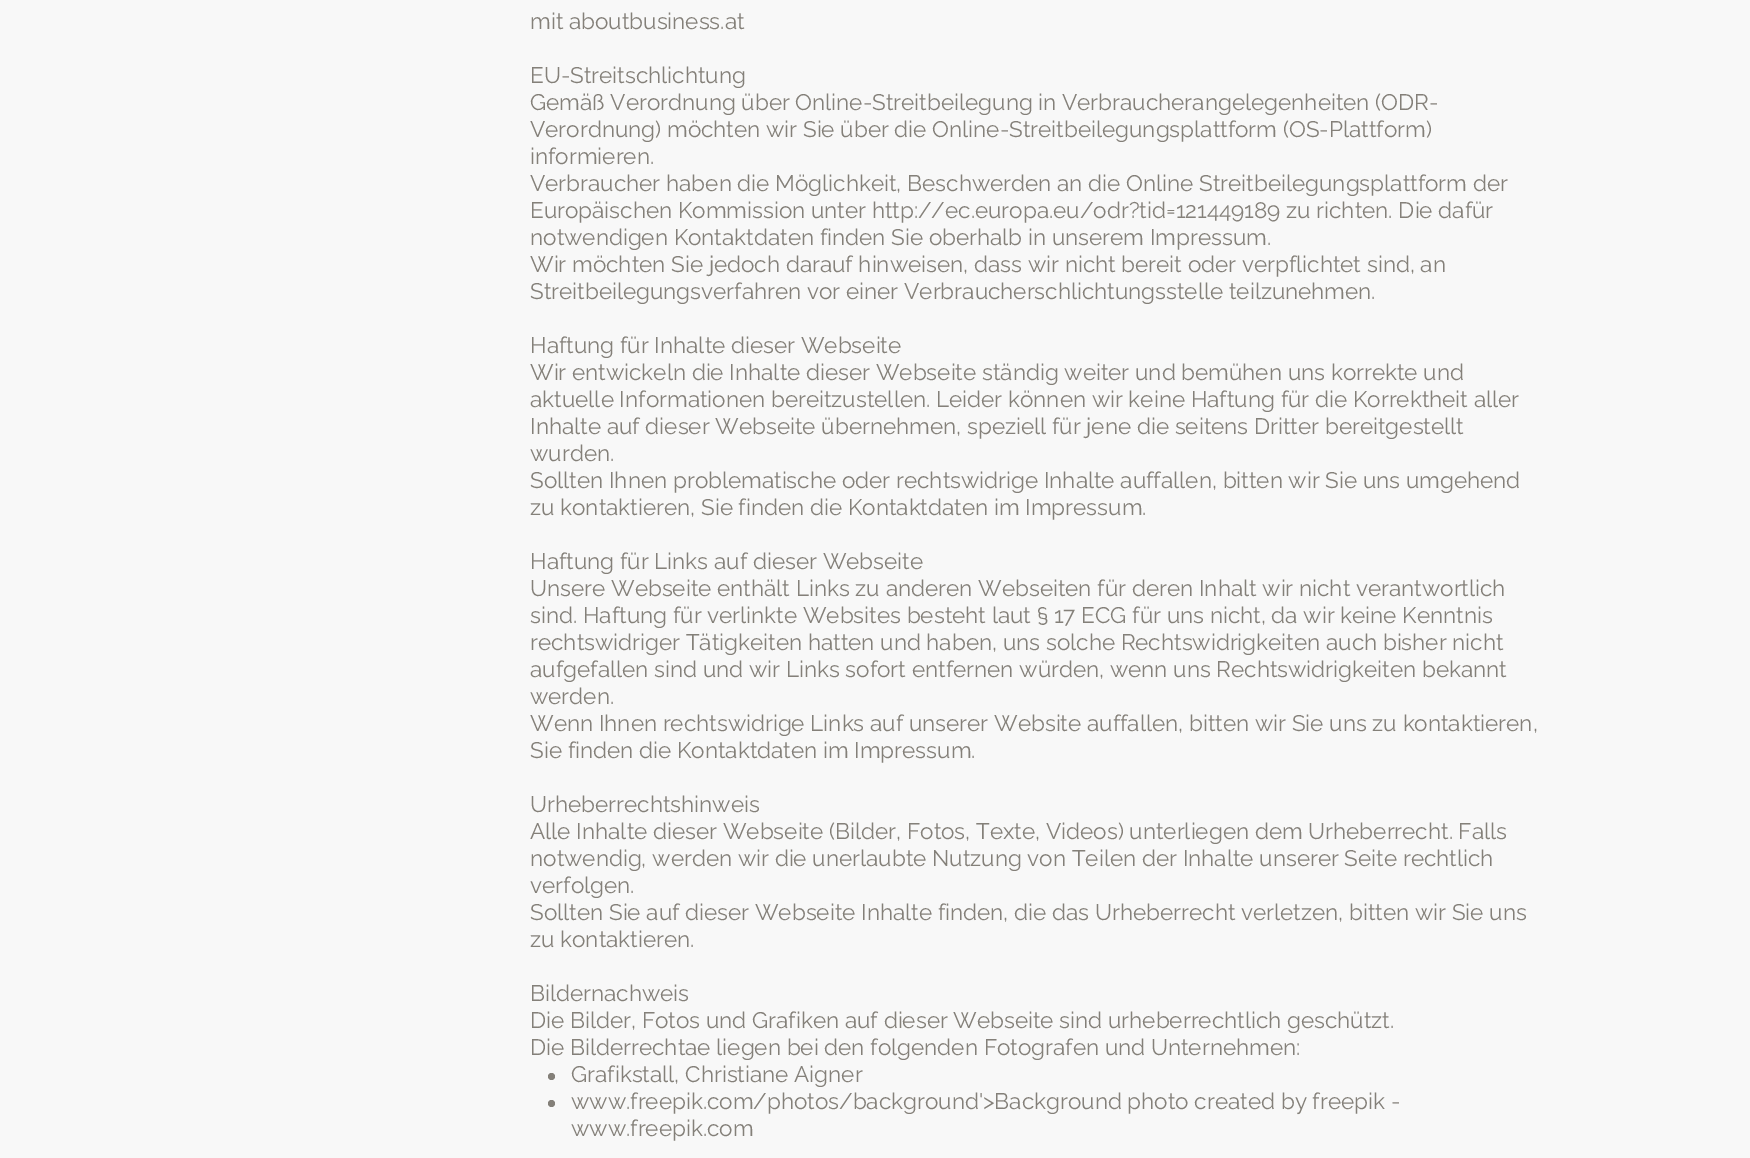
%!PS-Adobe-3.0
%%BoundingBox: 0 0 1750 1158
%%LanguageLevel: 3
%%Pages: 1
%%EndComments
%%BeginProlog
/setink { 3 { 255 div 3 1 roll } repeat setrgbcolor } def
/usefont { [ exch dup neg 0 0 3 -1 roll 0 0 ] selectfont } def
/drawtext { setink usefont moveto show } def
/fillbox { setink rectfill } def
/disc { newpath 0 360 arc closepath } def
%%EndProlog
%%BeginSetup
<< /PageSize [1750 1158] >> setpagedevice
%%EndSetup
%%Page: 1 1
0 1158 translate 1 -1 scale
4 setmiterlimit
0 0 1750 1158 248 248 248 fillbox
(mit aboutbusiness.at) 530 29 /Raleway-Regular 22.5 132 128 121 drawtext
(EU-Streitschlichtung) 530 83 /Raleway-Regular 22.5 132 128 121 drawtext
(Gemäß Verordnung über Online-Streitbeilegung in Verbraucherangelegenheiten \(ODR-) 530 110 /Raleway-Regular 22.5 132 128 121 drawtext
(Verordnung\) möchten wir Sie über die Online-Streitbeilegungsplattform \(OS-Plattform\)) 530 137 /Raleway-Regular 22.5 132 128 121 drawtext
(informieren.) 530 164 /Raleway-Regular 22.5 132 128 121 drawtext
(Verbraucher haben die Möglichkeit, Beschwerden an die Online Streitbeilegungsplattform der) 530 191 /Raleway-Regular 22.5 132 128 121 drawtext
(Europäischen Kommission unter http://ec.europa.eu/odr?tid=121449189 zu richten. Die dafür) 530 218 /Raleway-Regular 22.5 132 128 121 drawtext
(notwendigen Kontaktdaten finden Sie oberhalb in unserem Impressum.) 530 245 /Raleway-Regular 22.5 132 128 121 drawtext
(Wir möchten Sie jedoch darauf hinweisen, dass wir nicht bereit oder verpflichtet sind, an) 530 272 /Raleway-Regular 22.5 132 128 121 drawtext
(Streitbeilegungsverfahren vor einer Verbraucherschlichtungsstelle teilzunehmen.) 530 299 /Raleway-Regular 22.5 132 128 121 drawtext
(Haftung für Inhalte dieser Webseite) 530 353 /Raleway-Regular 22.5 132 128 121 drawtext
(Wir entwickeln die Inhalte dieser Webseite ständig weiter und bemühen uns korrekte und) 530 380 /Raleway-Regular 22.5 132 128 121 drawtext
(aktuelle Informationen bereitzustellen. Leider können wir keine Haftung für die Korrektheit aller) 530 407 /Raleway-Regular 22.5 132 128 121 drawtext
(Inhalte auf dieser Webseite übernehmen, speziell für jene die seitens Dritter bereitgestellt) 530 434 /Raleway-Regular 22.5 132 128 121 drawtext
(wurden.) 530 461 /Raleway-Regular 22.5 132 128 121 drawtext
(Sollten Ihnen problematische oder rechtswidrige Inhalte auffallen, bitten wir Sie uns umgehend) 530 488 /Raleway-Regular 22.5 132 128 121 drawtext
(zu kontaktieren, Sie finden die Kontaktdaten im Impressum.) 530 515 /Raleway-Regular 22.5 132 128 121 drawtext
(Haftung für Links auf dieser Webseite) 530 569 /Raleway-Regular 22.5 132 128 121 drawtext
(Unsere Webseite enthält Links zu anderen Webseiten für deren Inhalt wir nicht verantwortlich) 530 596 /Raleway-Regular 22.5 132 128 121 drawtext
(sind. Haftung für verlinkte Websites besteht laut § 17 ECG für uns nicht, da wir keine Kenntnis) 530 623 /Raleway-Regular 22.5 132 128 121 drawtext
(rechtswidriger Tätigkeiten hatten und haben, uns solche Rechtswidrigkeiten auch bisher nicht) 530 650 /Raleway-Regular 22.5 132 128 121 drawtext
(aufgefallen sind und wir Links sofort entfernen würden, wenn uns Rechtswidrigkeiten bekannt) 530 677 /Raleway-Regular 22.5 132 128 121 drawtext
(werden.) 530 704 /Raleway-Regular 22.5 132 128 121 drawtext
(Wenn Ihnen rechtswidrige Links auf unserer Website auffallen, bitten wir Sie uns zu kontaktieren,) 530 731 /Raleway-Regular 22.5 132 128 121 drawtext
(Sie finden die Kontaktdaten im Impressum.) 530 758 /Raleway-Regular 22.5 132 128 121 drawtext
(Urheberrechtshinweis) 530 812 /Raleway-Regular 22.5 132 128 121 drawtext
(Alle Inhalte dieser Webseite \(Bilder, Fotos, Texte, Videos\) unterliegen dem Urheberrecht. Falls) 530 839 /Raleway-Regular 22.5 132 128 121 drawtext
(notwendig, werden wir die unerlaubte Nutzung von Teilen der Inhalte unserer Seite rechtlich) 530 866 /Raleway-Regular 22.5 132 128 121 drawtext
(verfolgen.) 530 893 /Raleway-Regular 22.5 132 128 121 drawtext
(Sollten Sie auf dieser Webseite Inhalte finden, die das Urheberrecht verletzen, bitten wir Sie uns) 530 920 /Raleway-Regular 22.5 132 128 121 drawtext
(zu kontaktieren.) 530 947 /Raleway-Regular 22.5 132 128 121 drawtext
(Bildernachweis) 530 1001 /Raleway-Regular 22.5 132 128 121 drawtext
(Die Bilder, Fotos und Grafiken auf dieser Webseite sind urheberrechtlich geschützt.) 530 1028 /Raleway-Regular 22.5 132 128 121 drawtext
(Die Bilderrechtae liegen bei den folgenden Fotografen und Unternehmen:) 530 1055 /Raleway-Regular 22.5 132 128 121 drawtext
551.5 1076.5 3.5 disc fill
(Grafikstall, Christiane Aigner) 571 1082 /Raleway-Regular 22.5 132 128 121 drawtext
551.5 1103.5 3.5 disc fill
(www.freepik.com/photos/background'>Background photo created by freepik -) 571 1109 /Raleway-Regular 22.5 132 128 121 drawtext
(www.freepik.com) 571 1136 /Raleway-Regular 22.5 132 128 121 drawtext
showpage
%%EOF
